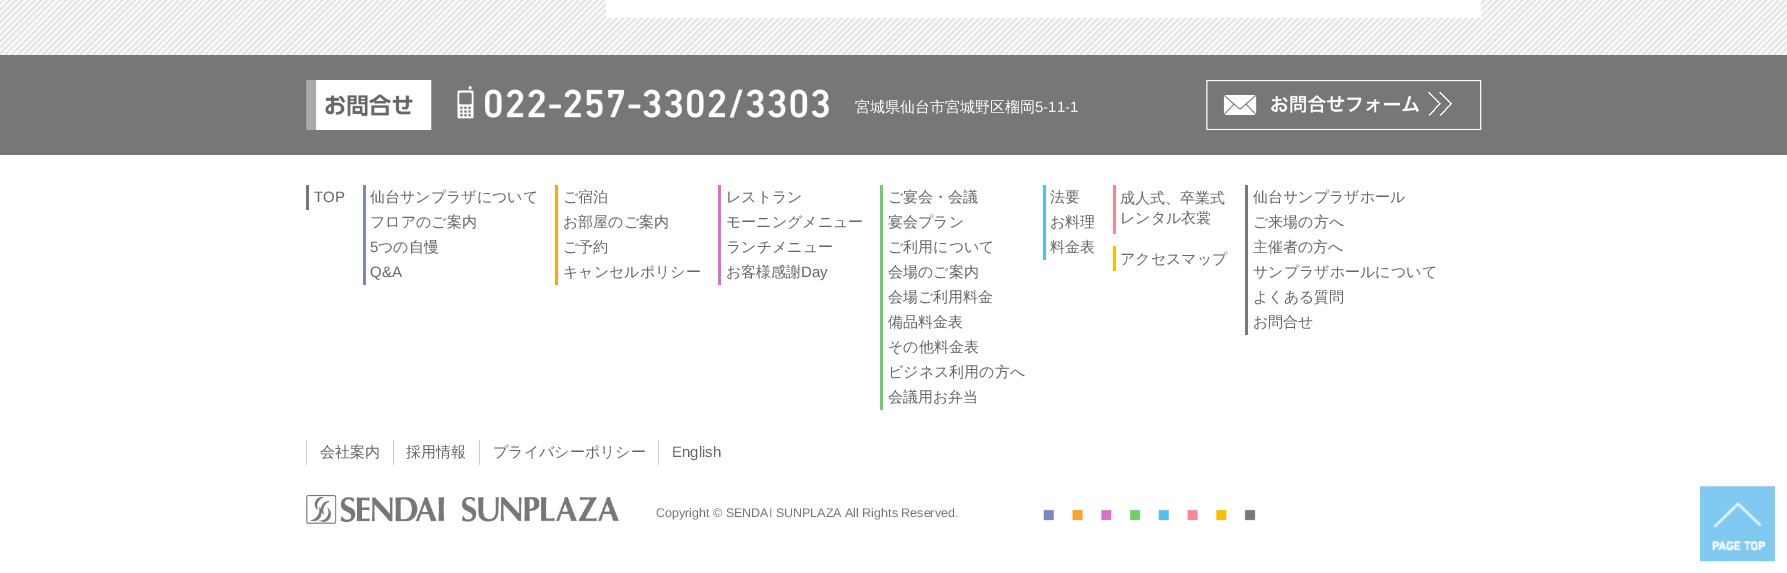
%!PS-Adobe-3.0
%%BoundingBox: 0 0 1787 573
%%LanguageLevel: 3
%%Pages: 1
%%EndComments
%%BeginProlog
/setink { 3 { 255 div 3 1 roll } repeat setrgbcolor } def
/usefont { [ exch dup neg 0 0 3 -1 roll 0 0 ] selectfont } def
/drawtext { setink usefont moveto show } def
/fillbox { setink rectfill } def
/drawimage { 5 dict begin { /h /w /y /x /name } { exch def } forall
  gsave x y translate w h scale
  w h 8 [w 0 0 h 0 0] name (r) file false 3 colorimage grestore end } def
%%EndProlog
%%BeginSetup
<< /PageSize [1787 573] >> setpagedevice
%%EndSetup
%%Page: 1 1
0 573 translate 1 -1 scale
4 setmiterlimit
0 0 1787 573 255 255 255 fillbox
(assets/img1.rgb) 0 0 1787 55 drawimage
606 0 875 18 255 255 255 fillbox
0 55 1787 100 119 119 119 fillbox
(assets/img2.rgb) 306 80 126 50 drawimage
(assets/img3.rgb) 457 85 373 34 drawimage
(宮城県仙台市宮城野区榴岡) 855 112 /WenQuanYiZenHei-Medium 15 255 255 255 drawtext
(5-11-1) 1035 112 /LiberationSans-Regular 15 255 255 255 drawtext
(assets/img4.rgb) 1206 80 276 50 drawimage
306 185 3 25 119 119 119 fillbox
(TOP) 314 202 /LiberationSans-Regular 15 102 102 102 drawtext
363 185 3 100 123 133 192 fillbox
(仙台サンプラザについて) 370 202 /WenQuanYiZenHei-Medium 15 102 102 102 drawtext
(フロアのご案内) 370 227 /WenQuanYiZenHei-Medium 15 102 102 102 drawtext
(5) 370 252 /LiberationSans-Regular 15 102 102 102 drawtext
(つの自慢) 378 252 /WenQuanYiZenHei-Medium 15 102 102 102 drawtext
(Q&A) 370 277 /LiberationSans-Regular 15 102 102 102 drawtext
555 185 3 100 250 162 41 fillbox
(ご宿泊) 563 202 /WenQuanYiZenHei-Medium 15 102 102 102 drawtext
(お部屋のご案内) 563 227 /WenQuanYiZenHei-Medium 15 102 102 102 drawtext
(ご予約) 563 252 /WenQuanYiZenHei-Medium 15 102 102 102 drawtext
(キャンセルポリシー) 563 277 /WenQuanYiZenHei-Medium 15 102 102 102 drawtext
718 185 3 100 221 111 204 fillbox
(レストラン) 726 202 /WenQuanYiZenHei-Medium 15 102 102 102 drawtext
(モーニングメニュー) 726 227 /WenQuanYiZenHei-Medium 15 102 102 102 drawtext
(ランチメニュー) 726 252 /WenQuanYiZenHei-Medium 15 102 102 102 drawtext
(お客様感謝) 726 277 /WenQuanYiZenHei-Medium 15 102 102 102 drawtext
(Day) 801 277 /LiberationSans-Regular 15 102 102 102 drawtext
880 185 3 225 108 208 106 fillbox
(ご宴会・会議) 888 202 /WenQuanYiZenHei-Medium 15 102 102 102 drawtext
(宴会プラン) 888 227 /WenQuanYiZenHei-Medium 15 102 102 102 drawtext
(ご利用について) 888 252 /WenQuanYiZenHei-Medium 15 102 102 102 drawtext
(会場のご案内) 888 277 /WenQuanYiZenHei-Medium 15 102 102 102 drawtext
(会場ご利用料金) 888 302 /WenQuanYiZenHei-Medium 15 102 102 102 drawtext
(備品料金表) 888 327 /WenQuanYiZenHei-Medium 15 102 102 102 drawtext
(その他料金表) 888 352 /WenQuanYiZenHei-Medium 15 102 102 102 drawtext
(ビジネス利用の方へ) 888 377 /WenQuanYiZenHei-Medium 15 102 102 102 drawtext
(会議用お弁当) 888 402 /WenQuanYiZenHei-Medium 15 102 102 102 drawtext
1043 185 3 75 82 192 239 fillbox
(法要) 1050 202 /WenQuanYiZenHei-Medium 15 102 102 102 drawtext
(お料理) 1050 227 /WenQuanYiZenHei-Medium 15 102 102 102 drawtext
(料金表) 1050 252 /WenQuanYiZenHei-Medium 15 102 102 102 drawtext
1113 185 3 49 247 136 147 fillbox
(成人式、卒業式) 1120 203 /WenQuanYiZenHei-Medium 15 102 102 102 drawtext
(レンタル衣裳) 1120 223 /WenQuanYiZenHei-Medium 15 102 102 102 drawtext
1113 246 3 25 249 189 0 fillbox
(アクセスマップ) 1120 264 /WenQuanYiZenHei-Medium 15 102 102 102 drawtext
1245 185 3 150 119 119 119 fillbox
(仙台サンプラザホール) 1253 202 /WenQuanYiZenHei-Medium 15 102 102 102 drawtext
(ご来場の方へ) 1253 227 /WenQuanYiZenHei-Medium 15 102 102 102 drawtext
(主催者の方へ) 1253 252 /WenQuanYiZenHei-Medium 15 102 102 102 drawtext
(サンプラザホールについて) 1253 277 /WenQuanYiZenHei-Medium 15 102 102 102 drawtext
(よくある質問) 1253 302 /WenQuanYiZenHei-Medium 15 102 102 102 drawtext
(お問合せ) 1253 327 /WenQuanYiZenHei-Medium 15 102 102 102 drawtext
306 440 1 25 204 204 204 fillbox
(会社案内) 320 457 /WenQuanYiZenHei-Medium 15 102 102 102 drawtext
393 440 1 25 204 204 204 fillbox
(採用情報) 406 457 /WenQuanYiZenHei-Medium 15 102 102 102 drawtext
479 440 1 25 204 204 204 fillbox
(プライバシーポリシー) 493 457 /WenQuanYiZenHei-Medium 15 102 102 102 drawtext
658 440 1 25 204 204 204 fillbox
(English) 672 457 /LiberationSans-Regular 15 102 102 102 drawtext
(assets/img5.rgb) 1043 509 213 12 drawimage
(assets/img6.rgb) 306 495 313 29 drawimage
(Copyright © SENDAI SUNPLAZA All Rights Reserved.) 656 517 /LiberationSans-Regular 12.5 119 119 119 drawtext
(assets/img7.rgb) 1700 486 75 76 drawimage
showpage
%%EOF
